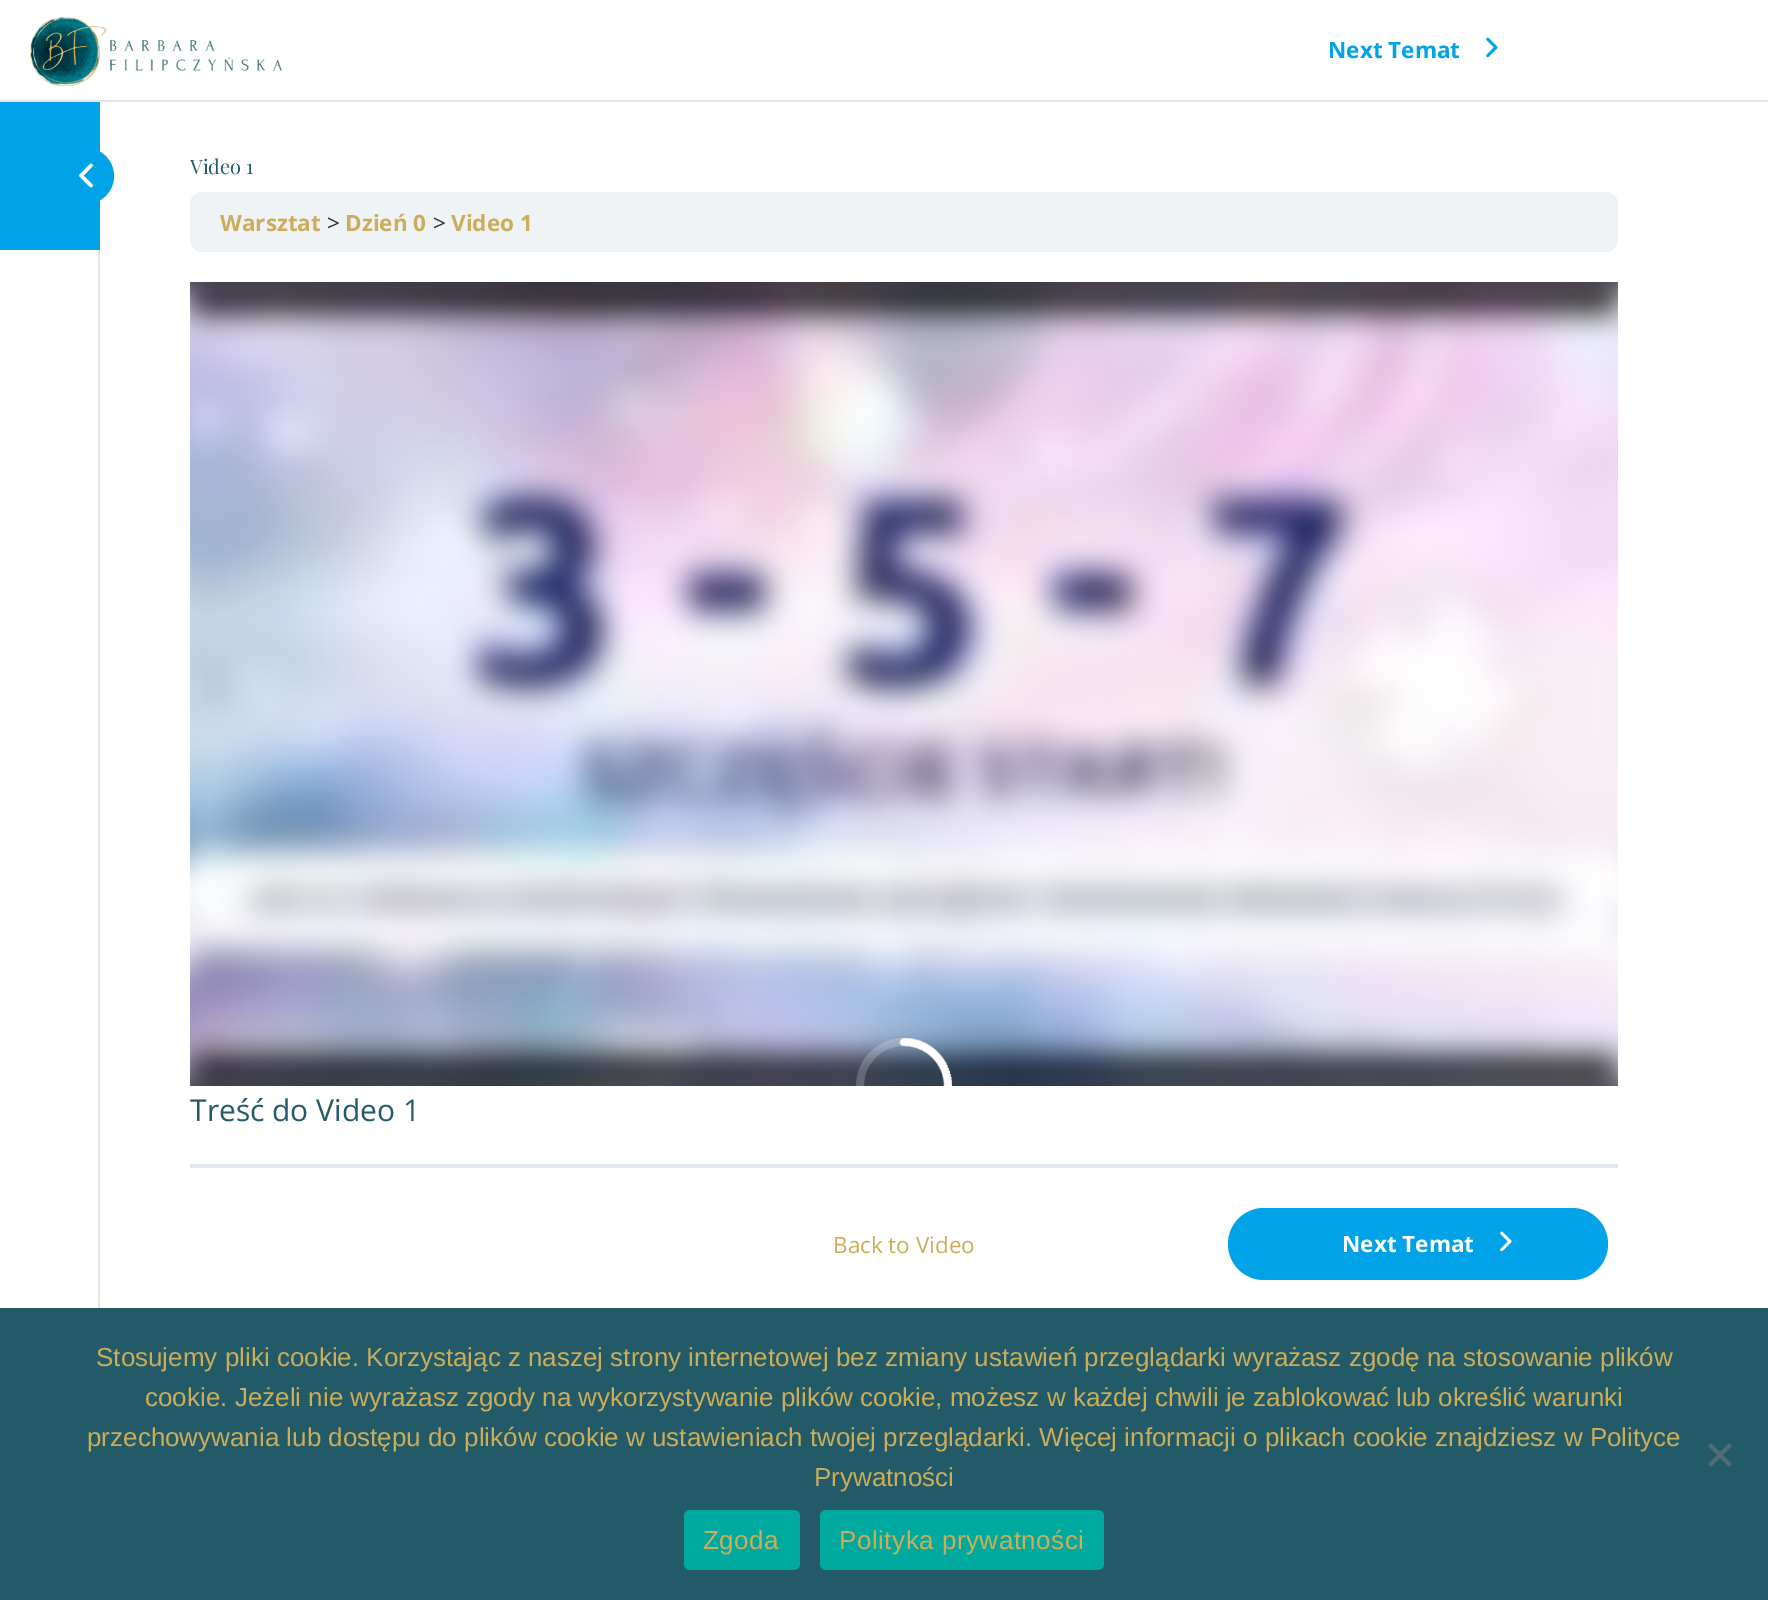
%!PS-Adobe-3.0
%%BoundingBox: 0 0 1768 1600
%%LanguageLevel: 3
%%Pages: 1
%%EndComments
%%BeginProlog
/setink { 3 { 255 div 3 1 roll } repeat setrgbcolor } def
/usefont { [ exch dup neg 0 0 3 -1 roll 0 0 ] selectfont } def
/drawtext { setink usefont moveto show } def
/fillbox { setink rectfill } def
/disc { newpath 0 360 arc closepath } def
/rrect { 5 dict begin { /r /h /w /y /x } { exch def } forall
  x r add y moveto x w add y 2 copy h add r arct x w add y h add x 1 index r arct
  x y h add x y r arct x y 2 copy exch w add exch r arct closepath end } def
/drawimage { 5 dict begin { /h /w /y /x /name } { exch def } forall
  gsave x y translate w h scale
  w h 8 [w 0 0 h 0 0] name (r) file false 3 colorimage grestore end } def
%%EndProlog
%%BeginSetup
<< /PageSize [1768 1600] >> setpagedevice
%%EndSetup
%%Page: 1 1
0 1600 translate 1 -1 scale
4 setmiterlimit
0 0 1768 1600 255 255 255 fillbox
98 250 2 1058 226 231 237 fillbox
0 102 100 148 0 162 232 fillbox
86 176 28 disc fill
(assets/img1.rgb) 79 163 14 25 drawimage
0 100 1768 2 226 231 237 fillbox
(assets/img2.rgb) 30 16 253 70 drawimage
(Next Temat) 1328 58 /OpenSans-Bold 22.5 0 162 232 drawtext
(assets/img3.rgb) 1486 37 12 21 drawimage
(Video 1) 190 174 /PlayfairDisplay-Regular 20 37 90 104 drawtext
240 243 246 setink
190 192 1428 60 12 rrect fill
(Warsztat) 220 231 /OpenSans-Bold 22.5 204 173 90 drawtext
(>) 327 231 /OpenSans-Regular 22.5 49 49 49 drawtext
(Dzień 0) 345 231 /OpenSans-Bold 22.5 204 173 90 drawtext
(>) 433 231 /OpenSans-Regular 22.5 49 49 49 drawtext
(Video 1) 451 231 /OpenSans-Bold 22.5 204 173 90 drawtext
(assets/img4.rgb) 190 282 1428 804 drawimage
(Treść do Video 1) 190 1121 /OpenSans-Regular 30 37 90 104 drawtext
190 1164 1428 4 226 231 237 fillbox
(Back to Video) 833 1253 /OpenSans-Regular 22.5 204 173 90 drawtext
0 162 232 setink
1228 1208 380 72 36 rrect fill
(Next Temat) 1342 1252 /OpenSans-Bold 22.5 255 255 255 drawtext
(assets/img5.rgb) 1500 1231 12 21 drawimage
0 1308 1768 292 34 90 104 fillbox
(Stosujemy pliki cookie. Korzystając z naszej strony internetowej bez zmiany ustawień przeglądarki wyrażasz zgodę na stosowanie plików) 96 1366 /LiberationSans-Regular 26 204 173 90 drawtext
(cookie. Jeżeli nie wyrażasz zgody na wykorzystywanie plików cookie, możesz w każdej chwili je zablokować lub określić warunki) 145 1406 /LiberationSans-Regular 26 204 173 90 drawtext
(przechowywania lub dostępu do plików cookie w ustawieniach twojej przeglądarki. Więcej informacji o plikach cookie znajdziesz w Polityce) 87 1446 /LiberationSans-Regular 26 204 173 90 drawtext
(Prywatności) 814 1486 /LiberationSans-Regular 26 204 173 90 drawtext
81 109 116 setink
1729 1443 moveto 1732 1446 lineto 1711 1467 lineto 1708 1464 lineto closepath fill
1708 1446 moveto 1711 1443 lineto 1732 1464 lineto 1729 1467 lineto closepath fill
0 169 157 setink
684 1510 116 60 6 rrect fill
204 173 90 setink
703 1549 moveto 0.5 0 (Zgoda) ashow
0 169 157 setink
820 1510 284 60 6 rrect fill
204 173 90 setink
839 1549 moveto 0.5 0 (Polityka prywatności) ashow
showpage
%%EOF
